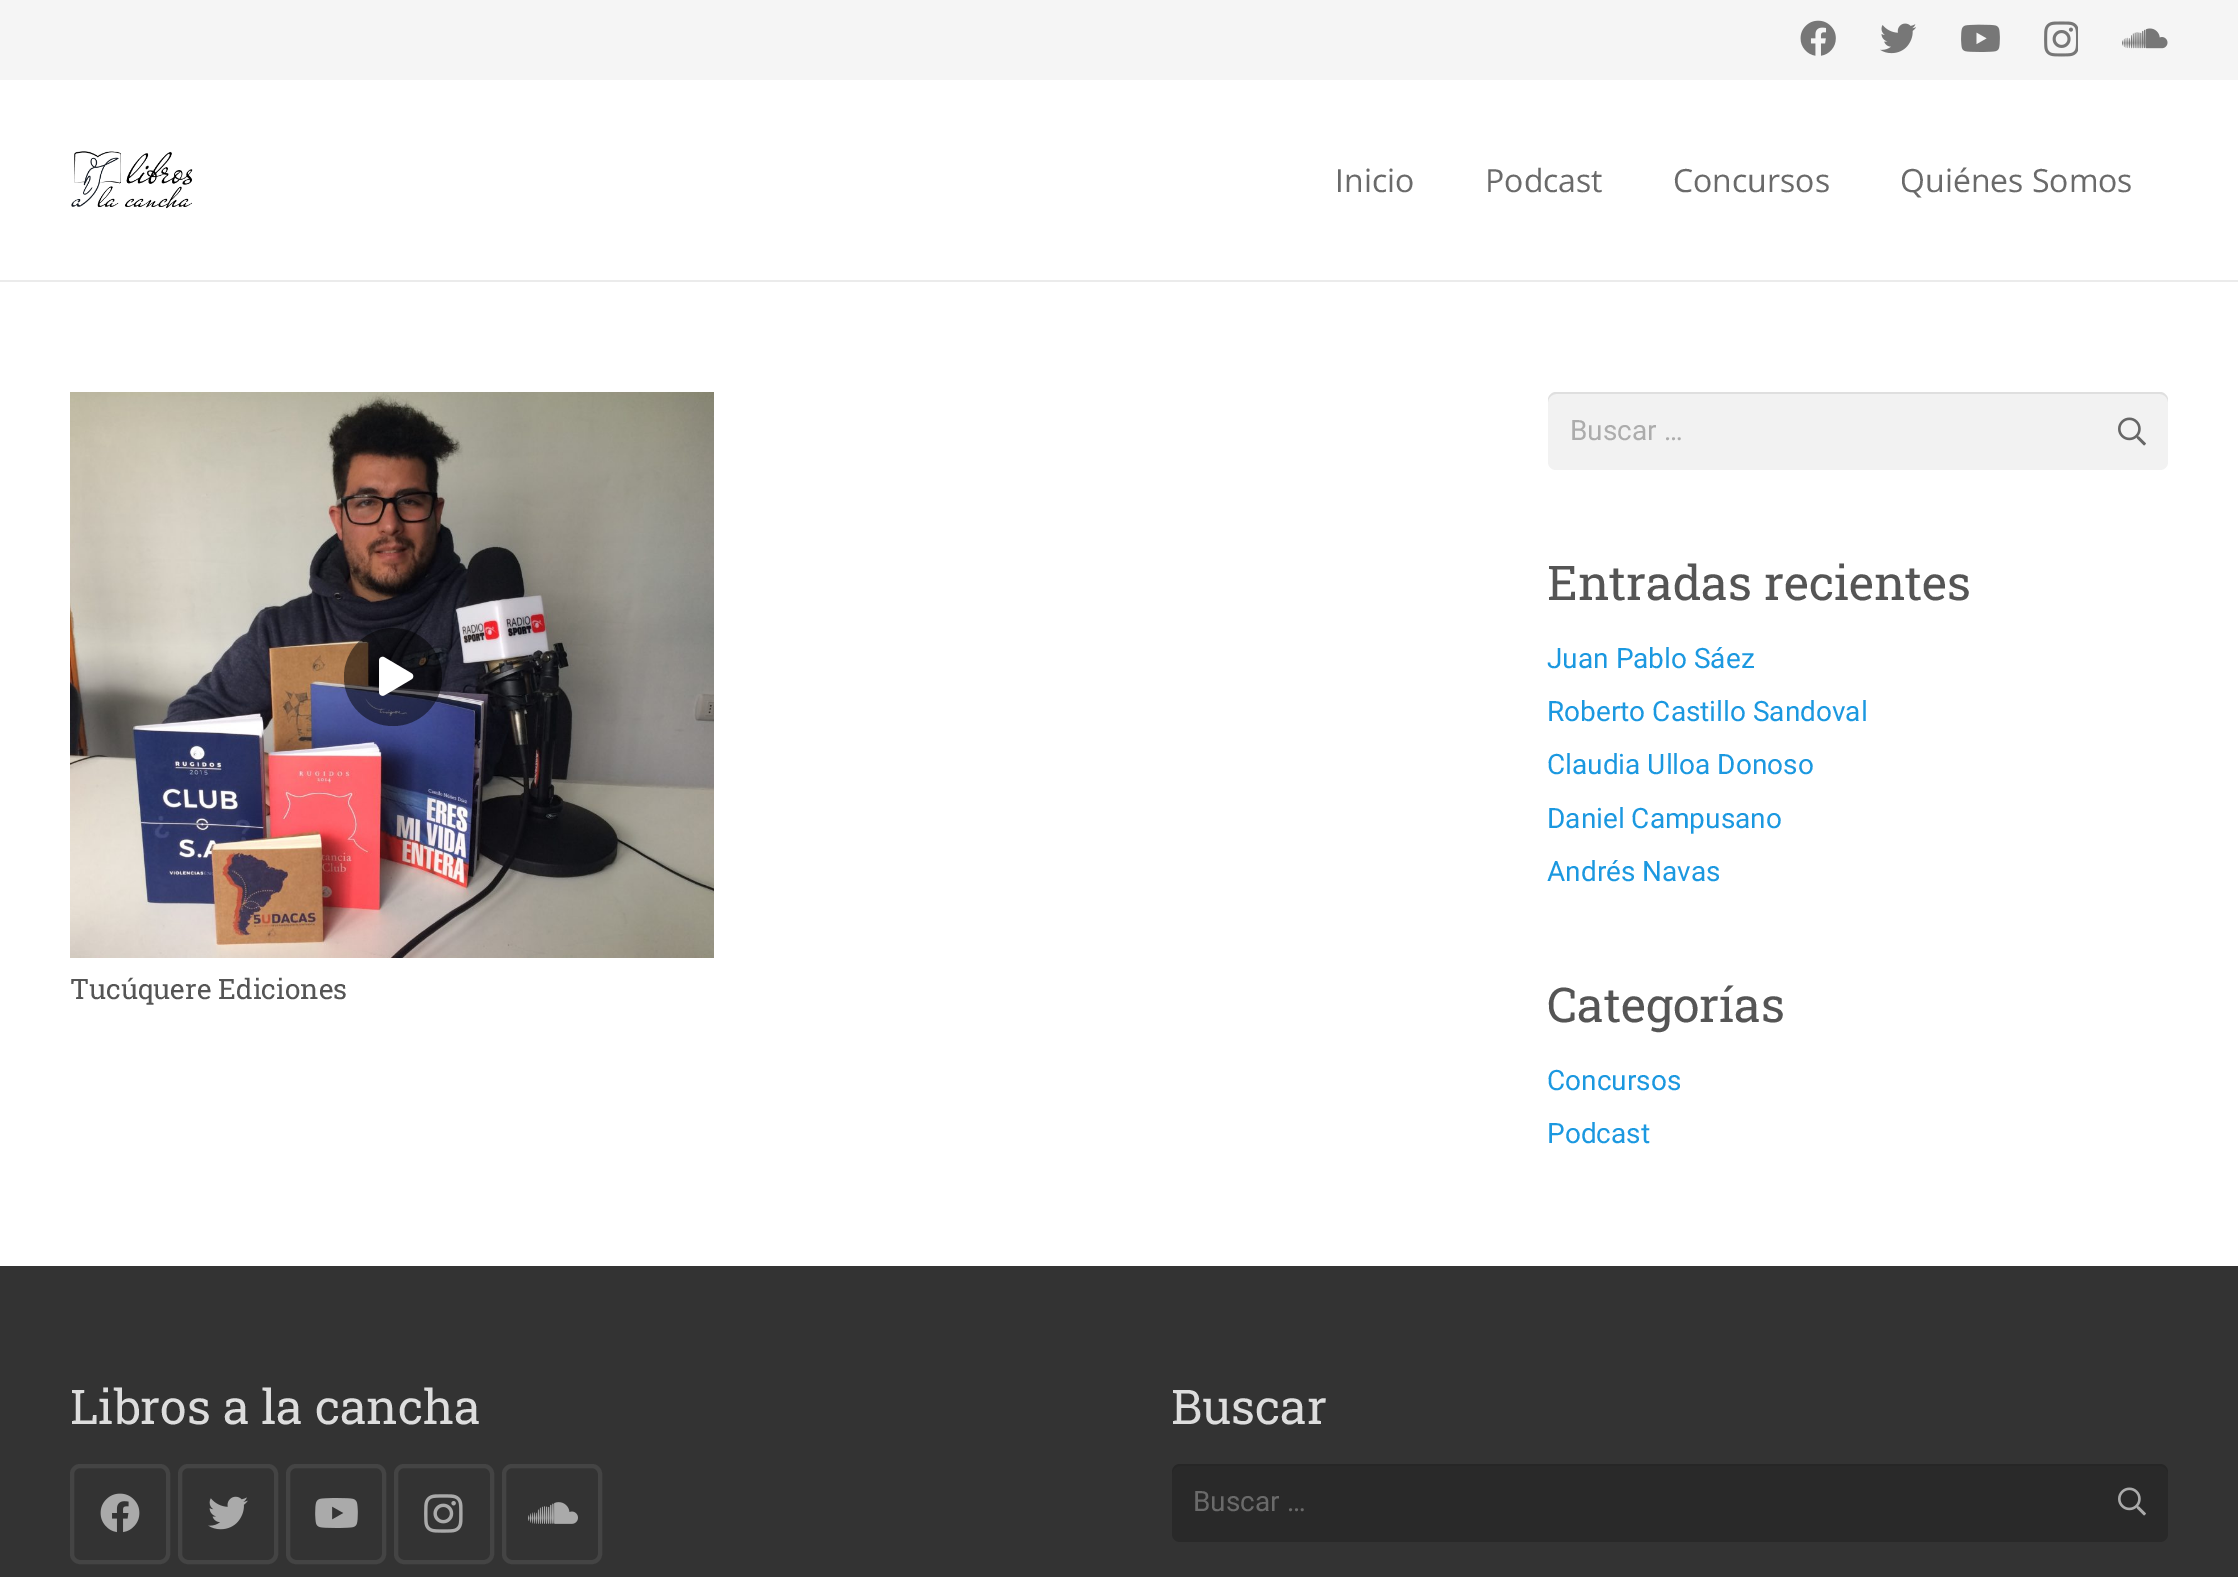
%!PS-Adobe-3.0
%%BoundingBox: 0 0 2238 1577
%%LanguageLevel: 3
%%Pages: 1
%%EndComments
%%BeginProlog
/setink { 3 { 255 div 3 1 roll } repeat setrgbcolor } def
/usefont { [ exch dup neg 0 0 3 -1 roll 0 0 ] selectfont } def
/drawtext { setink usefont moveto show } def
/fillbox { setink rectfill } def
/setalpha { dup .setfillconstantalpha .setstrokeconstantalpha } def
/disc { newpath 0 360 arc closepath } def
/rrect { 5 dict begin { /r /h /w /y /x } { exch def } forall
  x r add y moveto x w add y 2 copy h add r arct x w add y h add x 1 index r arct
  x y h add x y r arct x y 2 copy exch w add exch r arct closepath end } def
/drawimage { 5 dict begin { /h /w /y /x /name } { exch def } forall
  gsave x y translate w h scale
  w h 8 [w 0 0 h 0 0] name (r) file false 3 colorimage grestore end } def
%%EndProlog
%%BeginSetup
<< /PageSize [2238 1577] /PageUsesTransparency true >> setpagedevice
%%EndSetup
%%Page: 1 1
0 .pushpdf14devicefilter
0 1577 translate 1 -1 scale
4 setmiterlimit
0 0 2238 1577 255 255 255 fillbox
0 0 2238 80 245 245 245 fillbox
(assets/img1.rgb) 1800 20 36 36 drawimage
(assets/img2.rgb) 1880 23 36 31 drawimage
(assets/img3.rgb) 1961 24 39 28 drawimage
(assets/img4.rgb) 2044 21 34 36 drawimage
(assets/img5.rgb) 2122 28 46 21 drawimage
0 280 2238 2 235 235 235 fillbox
(assets/img6.rgb) 71 151 122 58 drawimage
(Inicio) 1335 192 /OpenSans-Regular 32 106 106 106 drawtext
(Podcast) 1485 192 /OpenSans-Regular 32 106 106 106 drawtext
(Concursos) 1673 192 /OpenSans-Regular 32 106 106 106 drawtext
(Quiénes Somos) 1900 192 /OpenSans-Regular 32 106 106 106 drawtext
(assets/img7.rgb) 70 392 644 566 drawimage
0.5 setalpha
0 0 0 setink
393 677 49 disc fill
1 setalpha
(assets/img8.rgb) 379 656 35 40 drawimage
(Tucúquere Ediciones) 70 999 /RobotoSlab-Regular 28 85 85 85 drawtext
242 242 242 setink
1548 392 620 78 8 rrect fill
223 223 223 setink
1556 394 moveto 2160 394 lineto 2164 394 2168 398 2168 402 curveto 2168 400 lineto 2168 396 2164 392 2160 392 curveto 1556 392 lineto 1552 392 1548 396 1548 400 curveto 1548 402 lineto 1548 398 1552 394 1556 394 curveto closepath fill
(Buscar …) 1570 440 /Roboto-Regular 28 172 172 172 drawtext
(assets/img9.rgb) 2118 417 28 29 drawimage
(Entradas recientes) 1547 600 /RobotoSlab-Regular 48 85 85 85 drawtext
(Juan Pablo Sáez) 1547 668 /Roboto-Regular 28 27 152 224 drawtext
(Roberto Castillo Sandoval) 1547 721 /Roboto-Regular 28 27 152 224 drawtext
(Claudia Ulloa Donoso) 1547 774 /Roboto-Regular 28 27 152 224 drawtext
(Daniel Campusano) 1547 828 /Roboto-Regular 28 27 152 224 drawtext
(Andrés Navas) 1547 881 /Roboto-Regular 28 27 152 224 drawtext
(Categorías) 1547 1022 /RobotoSlab-Regular 48 85 85 85 drawtext
(Concursos) 1547 1090 /Roboto-Regular 28 27 152 224 drawtext
(Podcast) 1547 1143 /Roboto-Regular 28 27 152 224 drawtext
0 1266 2238 311 51 51 51 fillbox
(Libros a la cancha) 70 1424 /RobotoSlab-Regular 48 221 221 221 drawtext
68 68 68 setink
4 setlinewidth
72 1466 96 96 8 rrect stroke
(assets/img10.rgb) 100 1493 40 40 drawimage
180 1466 96 96 8 rrect stroke
(assets/img11.rgb) 208 1496 40 34 drawimage
288 1466 96 96 8 rrect stroke
(assets/img12.rgb) 315 1498 43 30 drawimage
396 1466 96 96 8 rrect stroke
(assets/img13.rgb) 424 1494 39 39 drawimage
504 1466 96 96 8 rrect stroke
(assets/img14.rgb) 528 1502 50 22 drawimage
(Buscar) 1171 1424 /RobotoSlab-Regular 48 221 221 221 drawtext
41 41 41 setink
1172 1464 996 78 8 rrect fill
0.08 setalpha
0 0 0 setink
1180 1466 moveto 2160 1466 lineto 2164 1466 2168 1470 2168 1474 curveto 2168 1469 2166 1464 2160 1464 curveto 1180 1464 lineto 1174 1464 1172 1469 1172 1474 curveto 1172 1470 1176 1466 1180 1466 curveto closepath fill
1 setalpha
(Buscar …) 1193 1511 /Roboto-Regular 28 106 106 106 drawtext
(assets/img15.rgb) 2118 1487 28 29 drawimage
.poppdf14devicefilter showpage
%%EOF
